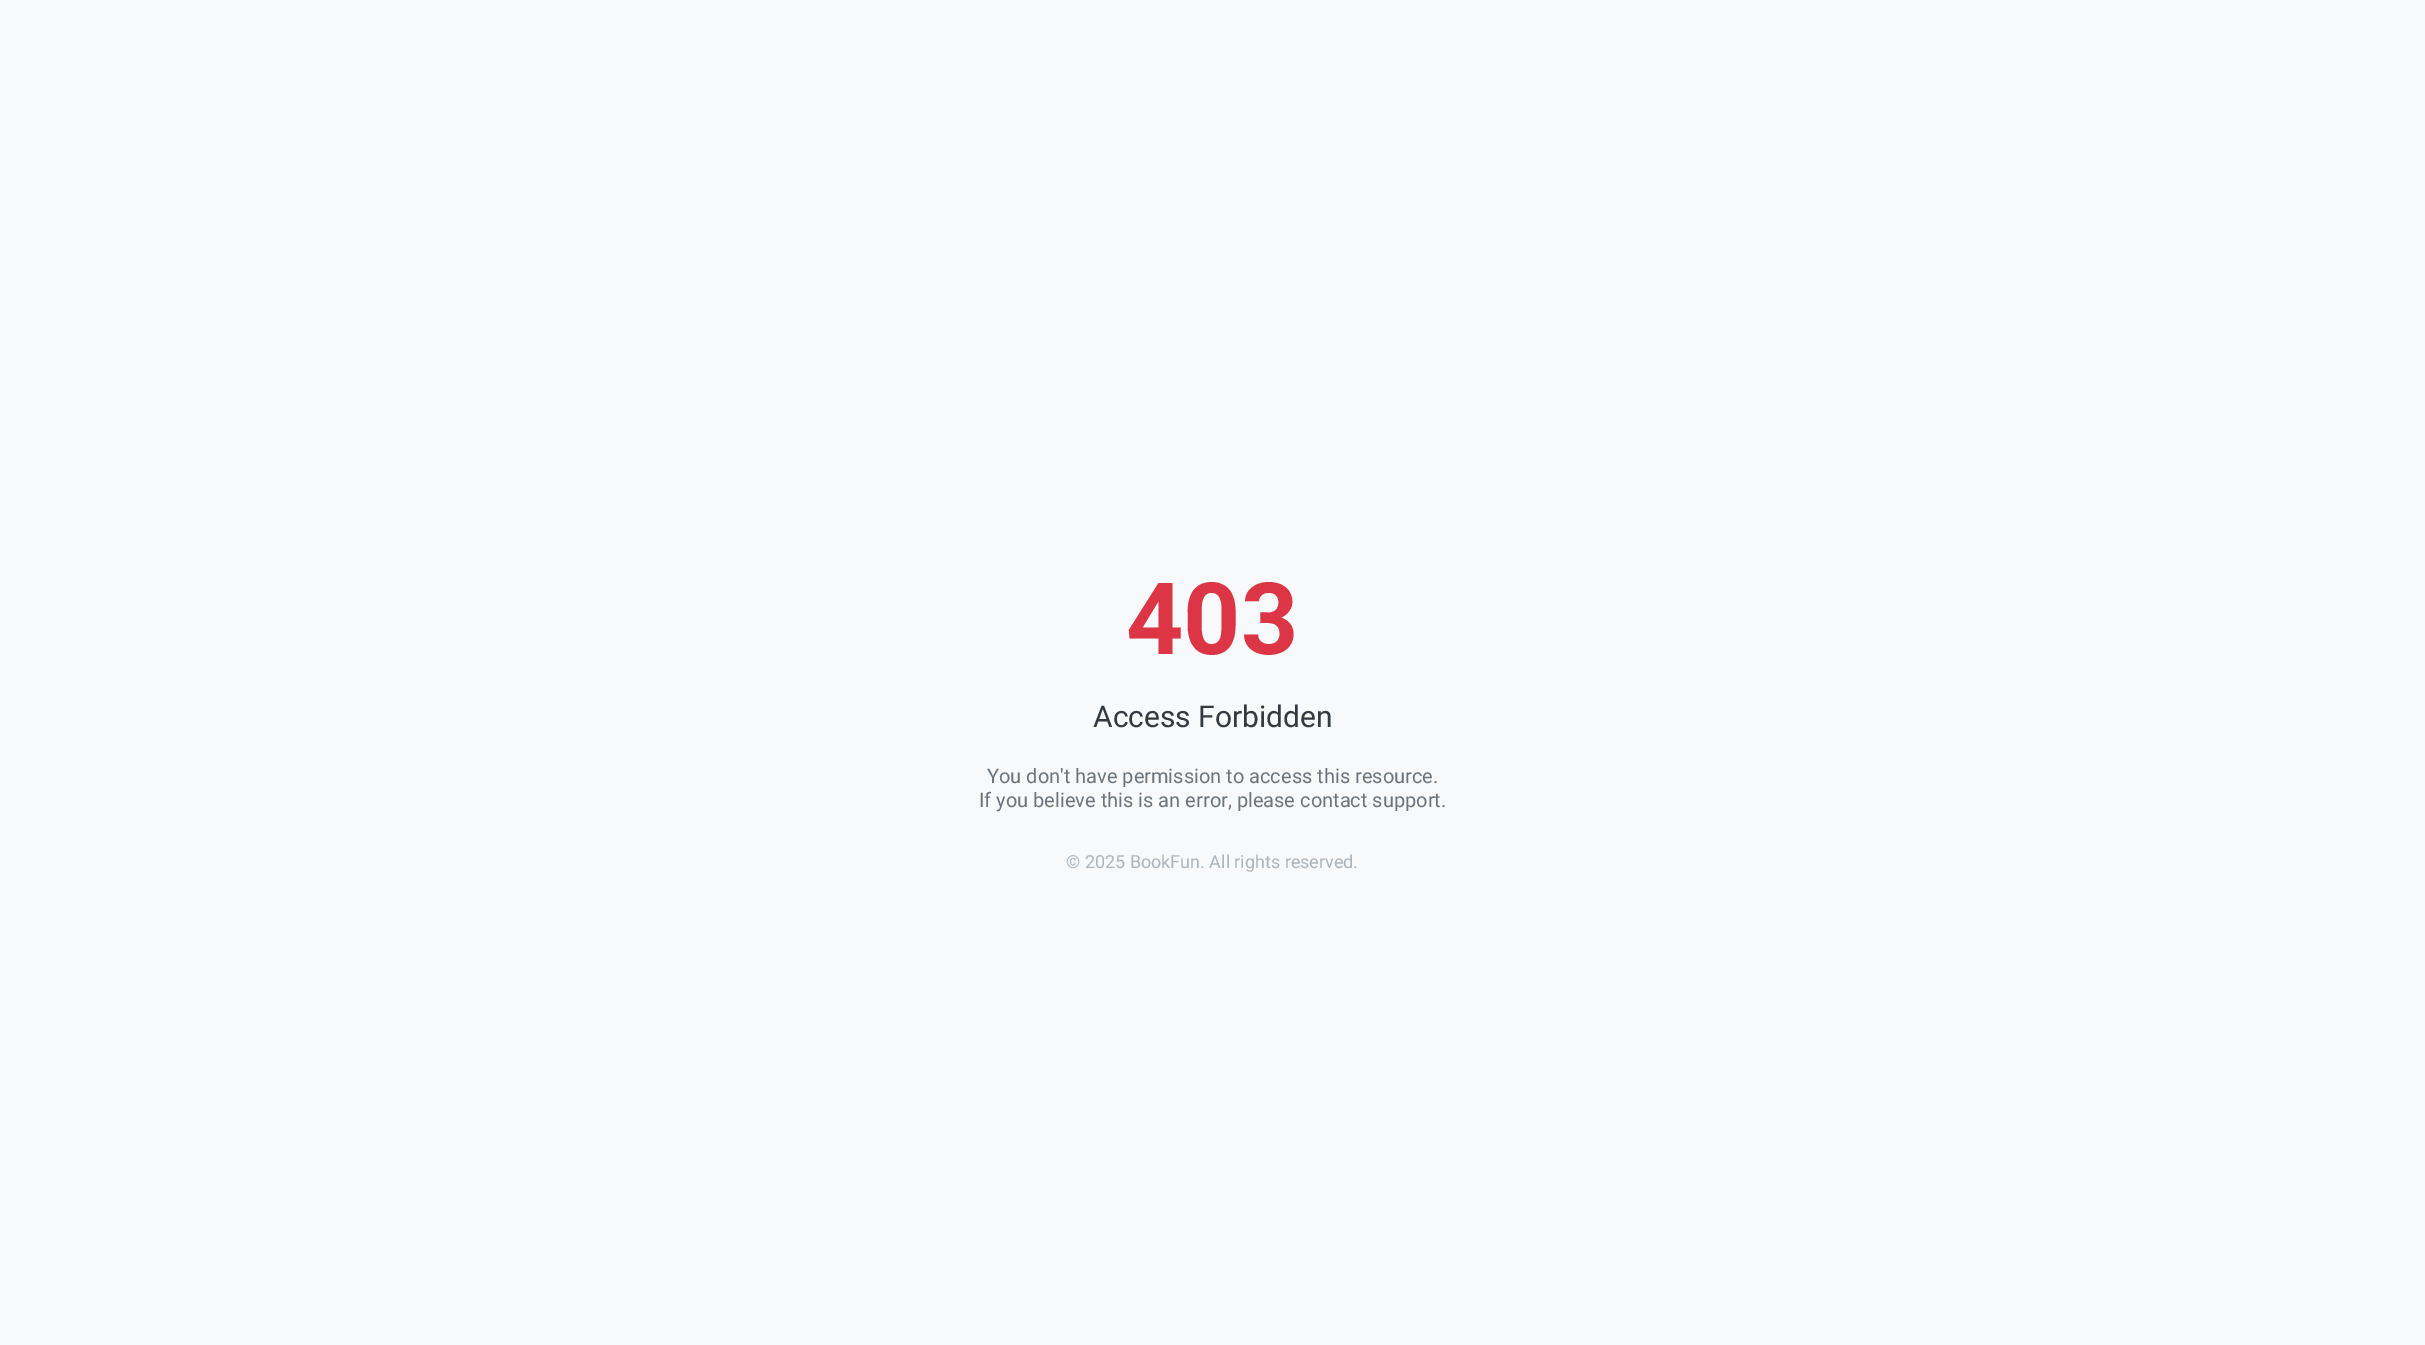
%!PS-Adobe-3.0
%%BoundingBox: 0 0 2425 1345
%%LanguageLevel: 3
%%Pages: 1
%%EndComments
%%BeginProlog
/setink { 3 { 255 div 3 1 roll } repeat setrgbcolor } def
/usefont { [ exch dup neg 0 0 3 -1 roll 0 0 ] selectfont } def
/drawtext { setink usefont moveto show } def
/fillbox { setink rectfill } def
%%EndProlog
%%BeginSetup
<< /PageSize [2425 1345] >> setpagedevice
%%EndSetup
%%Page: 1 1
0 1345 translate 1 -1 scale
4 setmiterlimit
0 0 2425 1345 248 249 250 fillbox
(403) 1126 654 /Roboto-Bold 100 220 53 69 drawtext
(Access Forbidden) 1093 727 /Roboto-Regular 30 52 58 64 drawtext
(You don't have permission to access this resource.) 987 783 /Roboto-Regular 20 108 117 125 drawtext
(If you believe this is an error, please contact support.) 979 807 /Roboto-Regular 20 108 117 125 drawtext
(© 2025 BookFun. All rights reserved.) 1066 868 /Roboto-Regular 18 173 181 189 drawtext
showpage
%%EOF
